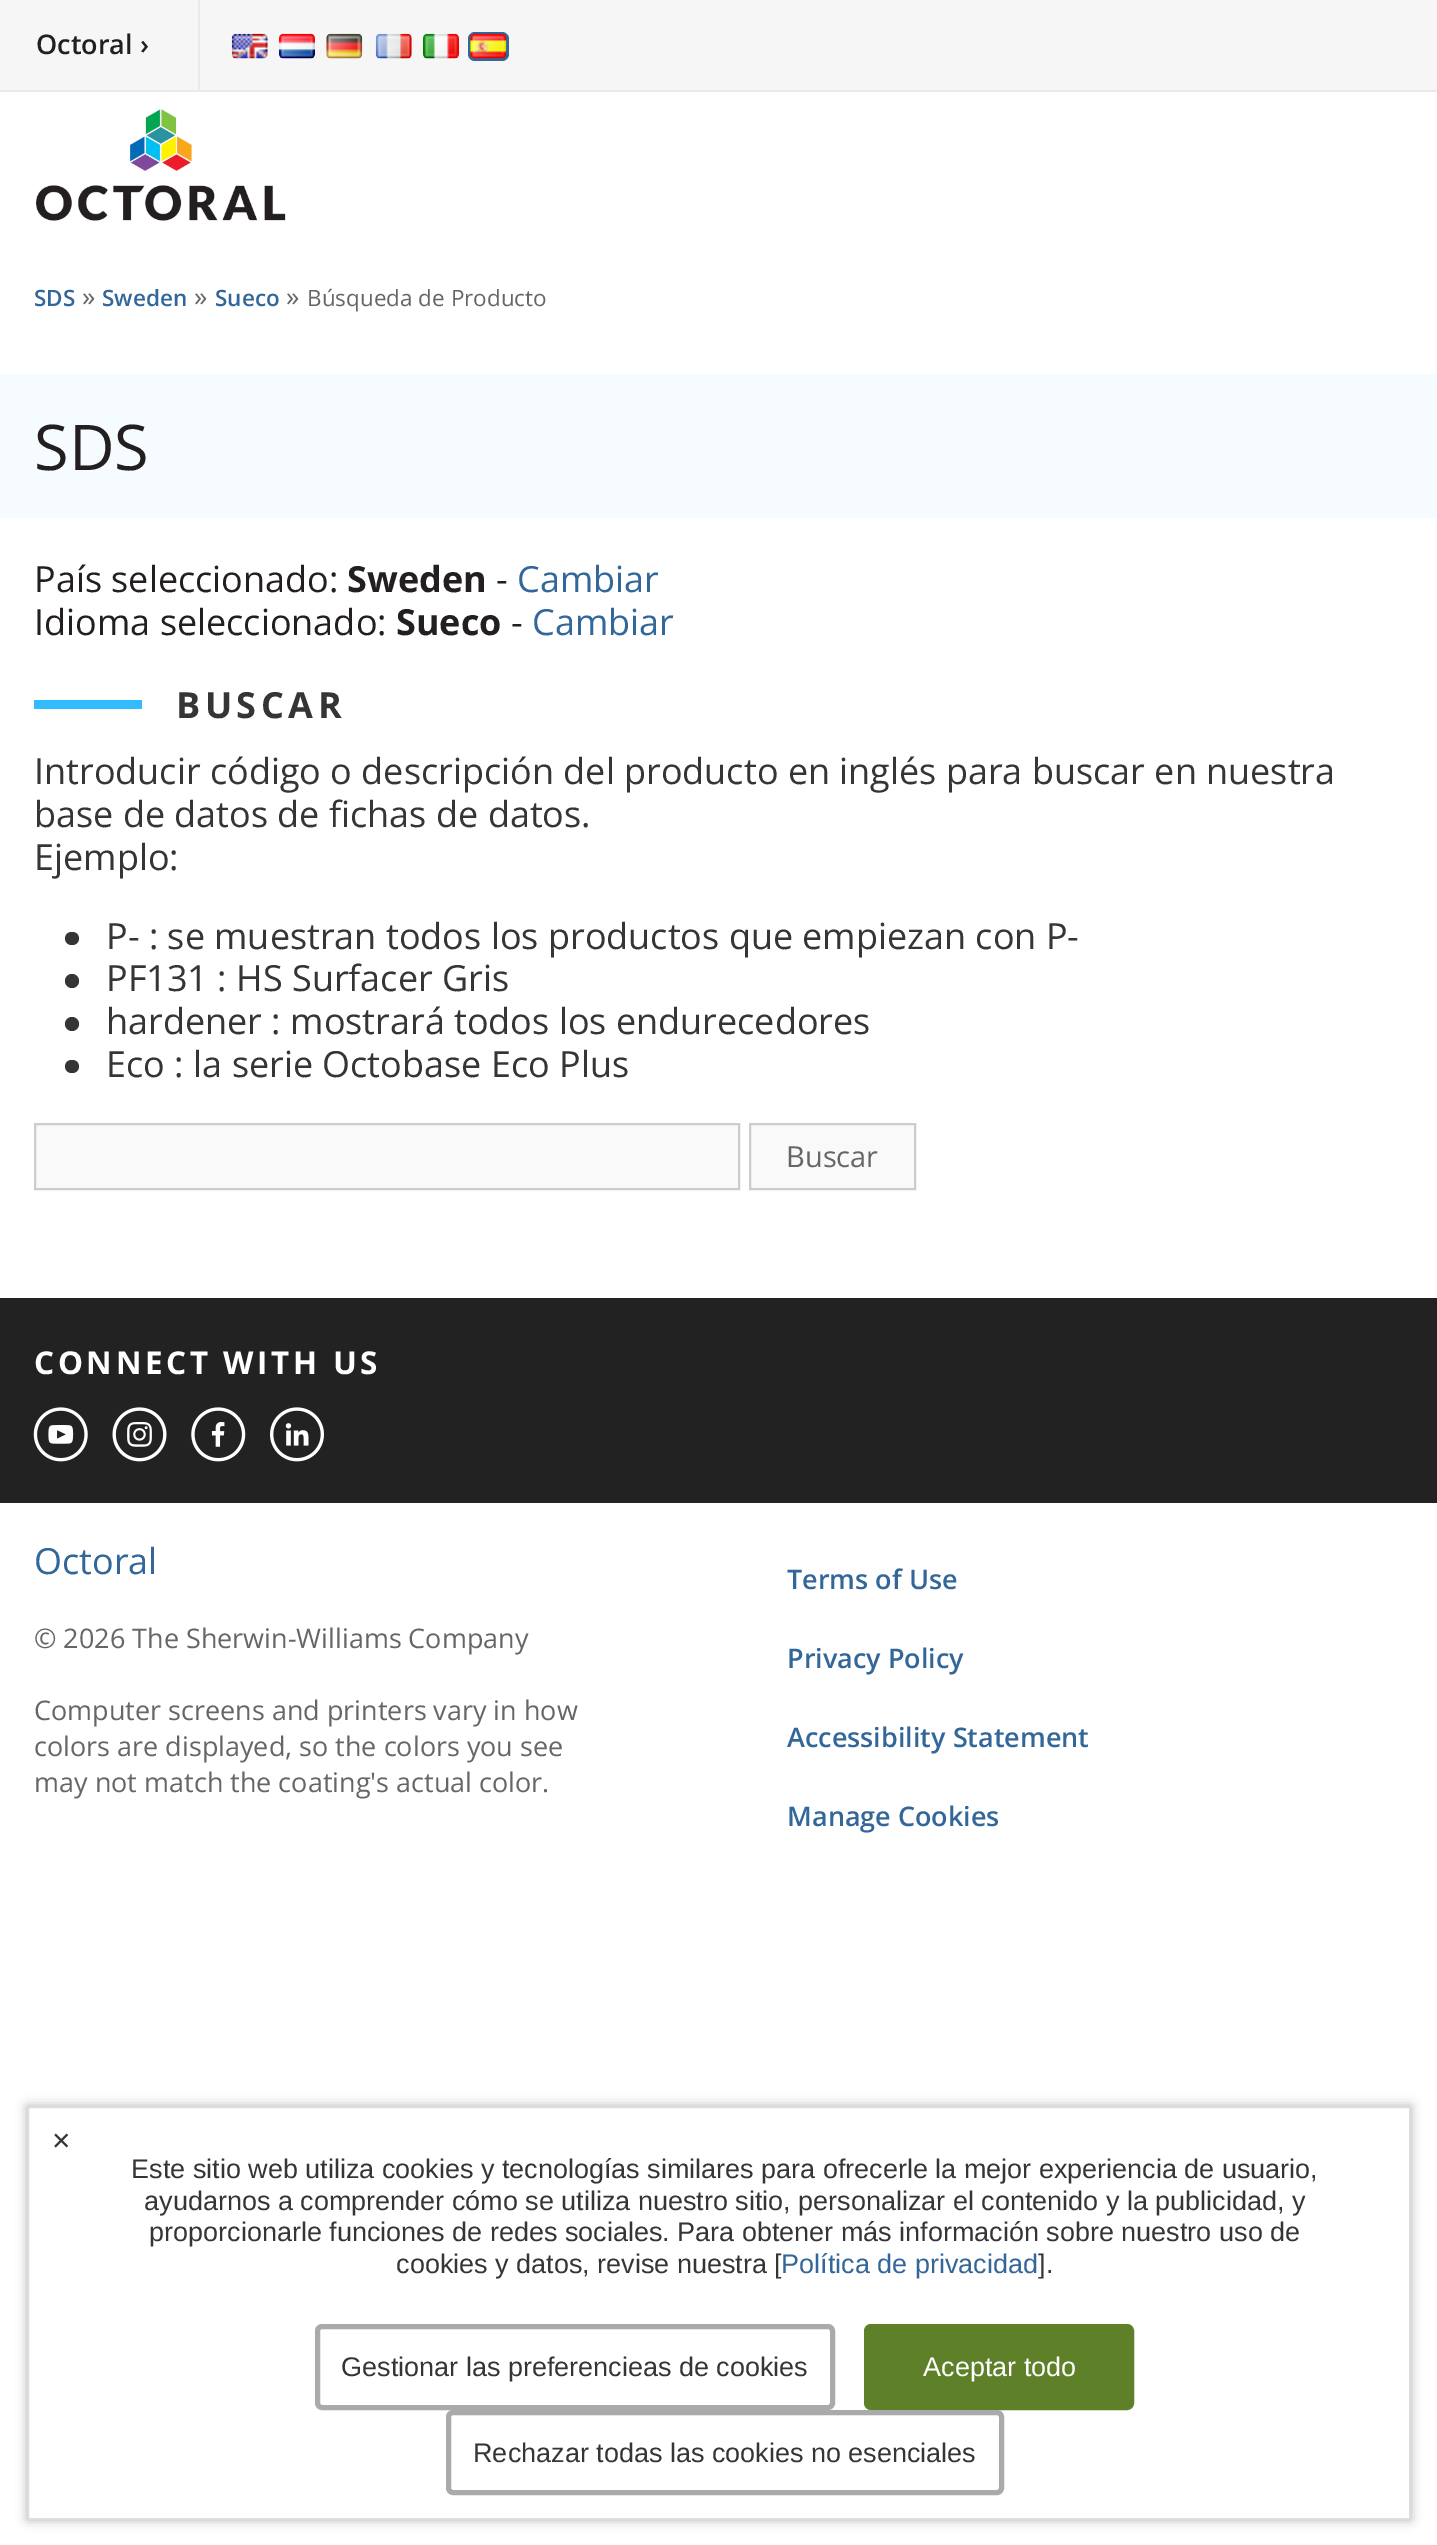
%!PS-Adobe-3.0
%%BoundingBox: 0 0 1437 2545
%%LanguageLevel: 3
%%Pages: 1
%%EndComments
%%BeginProlog
/setink { 3 { 255 div 3 1 roll } repeat setrgbcolor } def
/usefont { [ exch dup neg 0 0 3 -1 roll 0 0 ] selectfont } def
/drawtext { setink usefont moveto show } def
/fillbox { setink rectfill } def
/setalpha { dup .setfillconstantalpha .setstrokeconstantalpha } def
/disc { newpath 0 360 arc closepath } def
/rrect { 5 dict begin { /r /h /w /y /x } { exch def } forall
  x r add y moveto x w add y 2 copy h add r arct x w add y h add x 1 index r arct
  x y h add x y r arct x y 2 copy exch w add exch r arct closepath end } def
/softshadow { 12 dict begin { /a /b /q /h /w /y /x } { exch def } forall gsave /was 0 def
  9 -2 -9 { dup b mul 4 div /e exch def 1 sub .425 mul 2.718 exch exp 1 add a .99 .min exch div /now exch def
    1 1 now sub 1 was sub div sub setalpha /was now def
    w h .min e 2 mul add 0 gt { x e sub y e sub w e 2 mul add h e 2 mul add
      q e add b .6 mul add w h .min 2 div e add .min 0 .max rrect fill } if } for grestore end } def
/drawimage { 5 dict begin { /h /w /y /x /name } { exch def } forall
  gsave x y translate w h scale
  w h 8 [w 0 0 h 0 0] name (r) file false 3 colorimage grestore end } def
%%EndProlog
%%BeginSetup
<< /PageSize [1437 2545] /PageUsesTransparency true >> setpagedevice
%%EndSetup
%%Page: 1 1
0 .pushpdf14devicefilter
0 2545 translate 1 -1 scale
4 setmiterlimit
0 0 1437 2545 255 255 255 fillbox
0 0 1437 90 246 246 246 fillbox
0 90 1437 2 234 234 234 fillbox
198 0 2 90 234 234 234 fillbox
(Octoral ›) 36 54 /OpenSans-SemiBold 27 35 31 32 drawtext
(assets/img1.rgb) 231 33 37 26 drawimage
(assets/img2.rgb) 279 33 36 26 drawimage
(assets/img3.rgb) 326 33 37 26 drawimage
(assets/img4.rgb) 375 33 37 26 drawimage
(assets/img5.rgb) 423 33 36 26 drawimage
51 102 153 setink
468 32 41 29 7 rrect fill
(assets/img6.rgb) 470 33 37 26 drawimage
(assets/img7.rgb) 36 109 250 112 drawimage
(SDS) 34 306 /OpenSans-SemiBold 22.5 51 102 153 drawtext
(») 82 306 /OpenSans-Regular 27 102 102 102 drawtext
(Sweden) 102 306 /OpenSans-SemiBold 22.5 51 102 153 drawtext
(») 194 306 /OpenSans-Regular 27 102 102 102 drawtext
(Sueco) 215 306 /OpenSans-SemiBold 22.5 51 102 153 drawtext
(») 286 306 /OpenSans-Regular 27 102 102 102 drawtext
(Búsqueda de Producto) 307 306 /OpenSans-Regular 22.5 102 102 102 drawtext
0 374 1437 144 245 251 254 fillbox
(SDS) 34 470 /OpenSans-Regular 63 35 31 32 drawtext
(País seleccionado:) 34 592 /OpenSans-Regular 36 35 31 32 drawtext
(Sweden) 347 592 /OpenSans-Bold 36 35 31 32 drawtext
(-) 496 592 /OpenSans-Regular 36 35 31 32 drawtext
(Cambiar) 517 592 /OpenSans-Regular 36 51 102 153 drawtext
(Idioma seleccionado:) 34 635 /OpenSans-Regular 36 35 31 32 drawtext
(Sueco) 396 635 /OpenSans-Bold 36 35 31 32 drawtext
(-) 511 635 /OpenSans-Regular 36 35 31 32 drawtext
(Cambiar) 532 635 /OpenSans-Regular 36 51 102 153 drawtext
34 700 108 9 51 187 255 fillbox
/OpenSans-Bold 36 usefont
52 53 52 setink
176 718 moveto 4.5 0 (BUSCAR) ashow
(Introducir código o descripción del producto en inglés para buscar en nuestra) 34 784 /OpenSans-Regular 36 52 53 52 drawtext
(base de datos de fichas de datos.) 34 827 /OpenSans-Regular 36 52 53 52 drawtext
(Ejemplo:) 34 870 /OpenSans-Regular 36 52 53 52 drawtext
65 932 14 13 6.5 rrect fill
(P- : se muestran todos los productos que empiezan con P-) 106 949 /OpenSans-Regular 36 52 53 52 drawtext
72 981 7 disc fill
(PF131 : HS Surfacer Gris) 106 991 /OpenSans-Regular 36 52 53 52 drawtext
72 1024 7 disc fill
(hardener : mostrará todos los endurecedores) 106 1034 /OpenSans-Regular 36 52 53 52 drawtext
65 1060 14 13 6.5 rrect fill
(Eco : la serie Octobase Eco Plus) 106 1077 /OpenSans-Regular 36 52 53 52 drawtext
249 249 249 setink
35 1124 moveto 739 1124 lineto 739 1189 lineto 35 1189 lineto closepath gsave fill grestore
204 204 204 setink
2 setlinewidth
stroke
249 249 249 setink
750 1124 moveto 915 1124 lineto 915 1189 lineto 750 1189 lineto closepath gsave fill grestore
204 204 204 setink
stroke
(Buscar) 786 1167 /OpenSans-Regular 29 102 102 102 drawtext
0 1298 1437 205 34 34 34 fillbox
/OpenSans-Bold 31.5 usefont
255 255 255 setink
34 1374 moveto 3.6 0 (CONNECT WITH US) ashow
(assets/img8.rgb) 33 1407 55 55 drawimage
(assets/img9.rgb) 112 1407 55 55 drawimage
(assets/img10.rgb) 191 1407 55 55 drawimage
(assets/img11.rgb) 270 1407 54 55 drawimage
(Octoral) 34 1574 /OpenSans-Regular 36 51 102 153 drawtext
(© 2026 The Sherwin-Williams Company) 34 1648 /OpenSans-Regular 27 102 102 102 drawtext
(Computer screens and printers vary in how) 34 1720 /OpenSans-Regular 27 102 102 102 drawtext
(colors are displayed, so the colors you see) 34 1756 /OpenSans-Regular 27 102 102 102 drawtext
(may not match the coating's actual color.) 34 1792 /OpenSans-Regular 27 102 102 102 drawtext
(Terms of Use) 787 1589 /OpenSans-SemiBold 27 51 102 153 drawtext
(Privacy Policy) 787 1668 /OpenSans-SemiBold 27 51 102 153 drawtext
(Accessibility Statement) 787 1747 /OpenSans-SemiBold 27 51 102 153 drawtext
(Manage Cookies) 787 1826 /OpenSans-SemiBold 27 51 102 153 drawtext
0 0 0 setink
27 2106 1384 414 0 5.5 0.3 softshadow
255 255 255 setink
28 2107 moveto 1410 2107 lineto 1410 2519 lineto 28 2519 lineto closepath gsave fill grestore
221 221 221 setink
stroke
(×) 52 2151 /LiberationSans-Regular 31.5 52 53 52 drawtext
(Este sitio web utiliza cookies y tecnologías similares para ofrecerle la mejor experiencia de usuario,) 131 2178 /LiberationSans-Regular 27 52 53 52 drawtext
(ayudarnos a comprender cómo se utiliza nuestro sitio, personalizar el contenido y la publicidad, y) 144 2210 /LiberationSans-Regular 27 52 53 52 drawtext
(proporcionarle funciones de redes sociales. Para obtener más información sobre nuestro uso de) 149 2241 /LiberationSans-Regular 27 52 53 52 drawtext
(cookies y datos, revise nuestra [) 396 2273 /LiberationSans-Regular 27 52 53 52 drawtext
(Política de privacidad) 781 2273 /LiberationSans-Regular 27 51 102 153 drawtext
(].) 1038 2273 /LiberationSans-Regular 27 52 53 52 drawtext
170 170 170 setink
5 setlinewidth
317.5 2326.5 515 81 4.5 rrect stroke
(Gestionar las preferencieas de cookies) 341 2376 /LiberationSans-Regular 27 52 53 52 drawtext
94 128 41 setink
866.5 2326.5 265 81 4.5 rrect gsave fill grestore
stroke
(Aceptar todo) 923 2376 /LiberationSans-Regular 27 255 255 255 drawtext
170 170 170 setink
448.5 2412.5 553 80 4.5 rrect stroke
(Rechazar todas las cookies no esenciales) 473 2462 /LiberationSans-Regular 27 52 53 52 drawtext
.poppdf14devicefilter showpage
%%EOF
